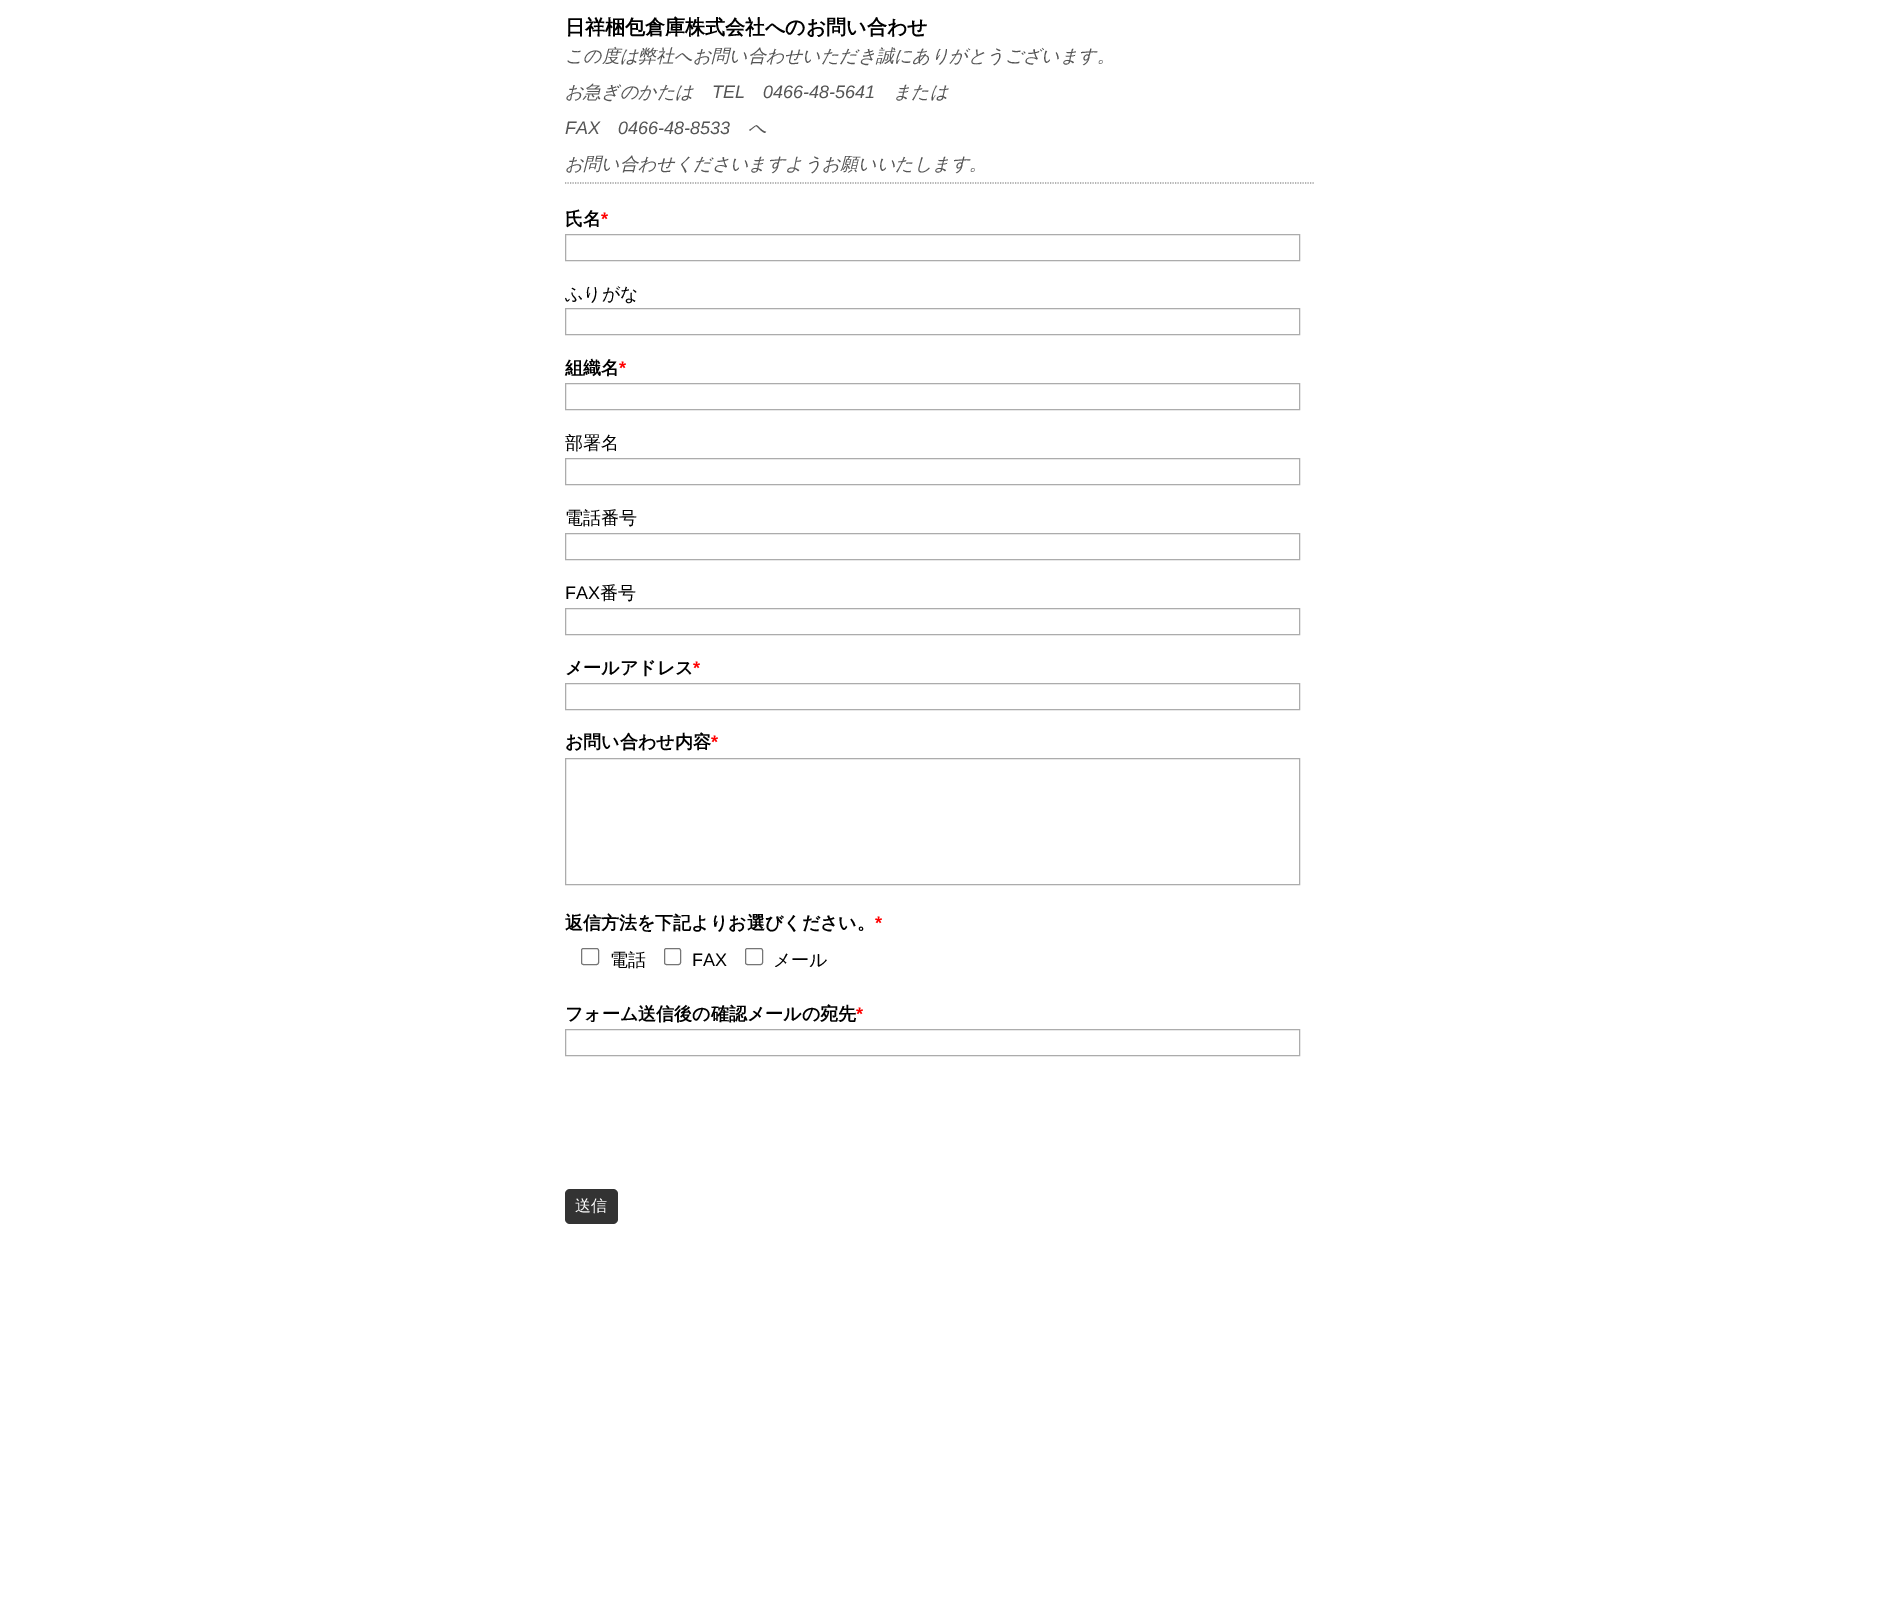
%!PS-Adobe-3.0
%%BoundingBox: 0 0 1880 1607
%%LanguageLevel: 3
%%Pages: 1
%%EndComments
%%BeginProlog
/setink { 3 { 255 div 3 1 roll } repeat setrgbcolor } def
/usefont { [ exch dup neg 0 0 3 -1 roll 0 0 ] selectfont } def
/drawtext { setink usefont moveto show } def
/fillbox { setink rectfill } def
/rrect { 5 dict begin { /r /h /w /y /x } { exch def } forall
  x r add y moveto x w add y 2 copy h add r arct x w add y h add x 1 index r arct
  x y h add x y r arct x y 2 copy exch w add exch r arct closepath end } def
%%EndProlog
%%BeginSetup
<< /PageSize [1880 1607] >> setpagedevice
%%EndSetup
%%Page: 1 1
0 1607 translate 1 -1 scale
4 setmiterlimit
0 0 1880 1607 255 255 255 fillbox
(日祥梱包倉庫株式会社へのお問い合わせ) 565 34 /WenQuanYiZenHei-Bold 20 0 0 0 drawtext
153 153 153 setink
1.2 setlinewidth
[1.25 1.25] 0 setdash
565 183 moveto 1315 183 lineto stroke
(この度は弊社へお問い合わせいただき誠にありがとうございます。) 565 62 /WenQuanYiZenHei-MediumItalic 18 85 85 85 drawtext
(お急ぎのかたは) 565 98 /WenQuanYiZenHei-MediumItalic 18 85 85 85 drawtext
(TEL) 712 98 /LiberationSans-Italic 18 85 85 85 drawtext
(0466-48-5641) 763 98 /LiberationSans-Italic 18 85 85 85 drawtext
(または) 893 98 /WenQuanYiZenHei-MediumItalic 18 85 85 85 drawtext
(FAX) 565 134 /LiberationSans-Italic 18 85 85 85 drawtext
(0466-48-8533) 618 134 /LiberationSans-Italic 18 85 85 85 drawtext
(へ) 748 134 /WenQuanYiZenHei-MediumItalic 18 85 85 85 drawtext
(お問い合わせくださいますようお願いいたします。) 565 170 /WenQuanYiZenHei-MediumItalic 18 85 85 85 drawtext
(氏名) 565 225 /WenQuanYiZenHei-Bold 18 0 0 0 drawtext
(*) 601 225 /LiberationSans-Bold 18 255 0 0 drawtext
172 172 172 setink
1 setlinewidth
[] 0 setdash
565.5 234.5 734 26 rectstroke
(ふりがな) 565 300 /WenQuanYiZenHei-Medium 18 0 0 0 drawtext
172 172 172 setink
565.5 308.5 734 26 rectstroke
(組織名) 565 374 /WenQuanYiZenHei-Bold 18 0 0 0 drawtext
(*) 619 374 /LiberationSans-Bold 18 255 0 0 drawtext
172 172 172 setink
565.5 383.5 734 26 rectstroke
(部署名) 565 449 /WenQuanYiZenHei-Medium 18 0 0 0 drawtext
172 172 172 setink
565.5 458.5 734 26 rectstroke
(電話番号) 565 524 /WenQuanYiZenHei-Medium 18 0 0 0 drawtext
172 172 172 setink
565.5 533.5 734 26 rectstroke
(FAX) 565 599 /LiberationSans-Regular 18 0 0 0 drawtext
(番号) 600 599 /WenQuanYiZenHei-Medium 18 0 0 0 drawtext
172 172 172 setink
565.5 608.5 734 26 rectstroke
(メールアドレス) 565 674 /WenQuanYiZenHei-Bold 18 0 0 0 drawtext
(*) 693 674 /LiberationSans-Bold 18 255 0 0 drawtext
172 172 172 setink
565.5 683.5 734 26 rectstroke
(お問い合わせ内容) 565 748 /WenQuanYiZenHei-Bold 18 0 0 0 drawtext
(*) 711 748 /LiberationSans-Bold 18 255 0 0 drawtext
172 172 172 setink
565.5 758.5 734 126 rectstroke
(返信方法を下記よりお選びください。) 565 929 /WenQuanYiZenHei-Bold 18 0 0 0 drawtext
(*) 875 929 /LiberationSans-Bold 18 255 0 0 drawtext
118 118 118 setink
581.5 948.5 17 16 2 rrect stroke
(電話) 610 966 /WenQuanYiZenHei-Medium 18 0 0 0 drawtext
118 118 118 setink
664.5 948.5 16 16 2 rrect stroke
(FAX) 692 966 /LiberationSans-Regular 18 0 0 0 drawtext
118 118 118 setink
745.5 948.5 17 16 2 rrect stroke
(メール) 773 966 /WenQuanYiZenHei-Medium 18 0 0 0 drawtext
(フォーム送信後の確認メールの宛先) 565 1020 /WenQuanYiZenHei-Bold 18 0 0 0 drawtext
(*) 856 1020 /LiberationSans-Bold 18 255 0 0 drawtext
172 172 172 setink
565.5 1029.5 734 26 rectstroke
51 51 51 setink
565 1189 53 35 5 rrect fill
(送信) 575 1211 /WenQuanYiZenHei-Medium 16 255 255 255 drawtext
showpage
%%EOF
